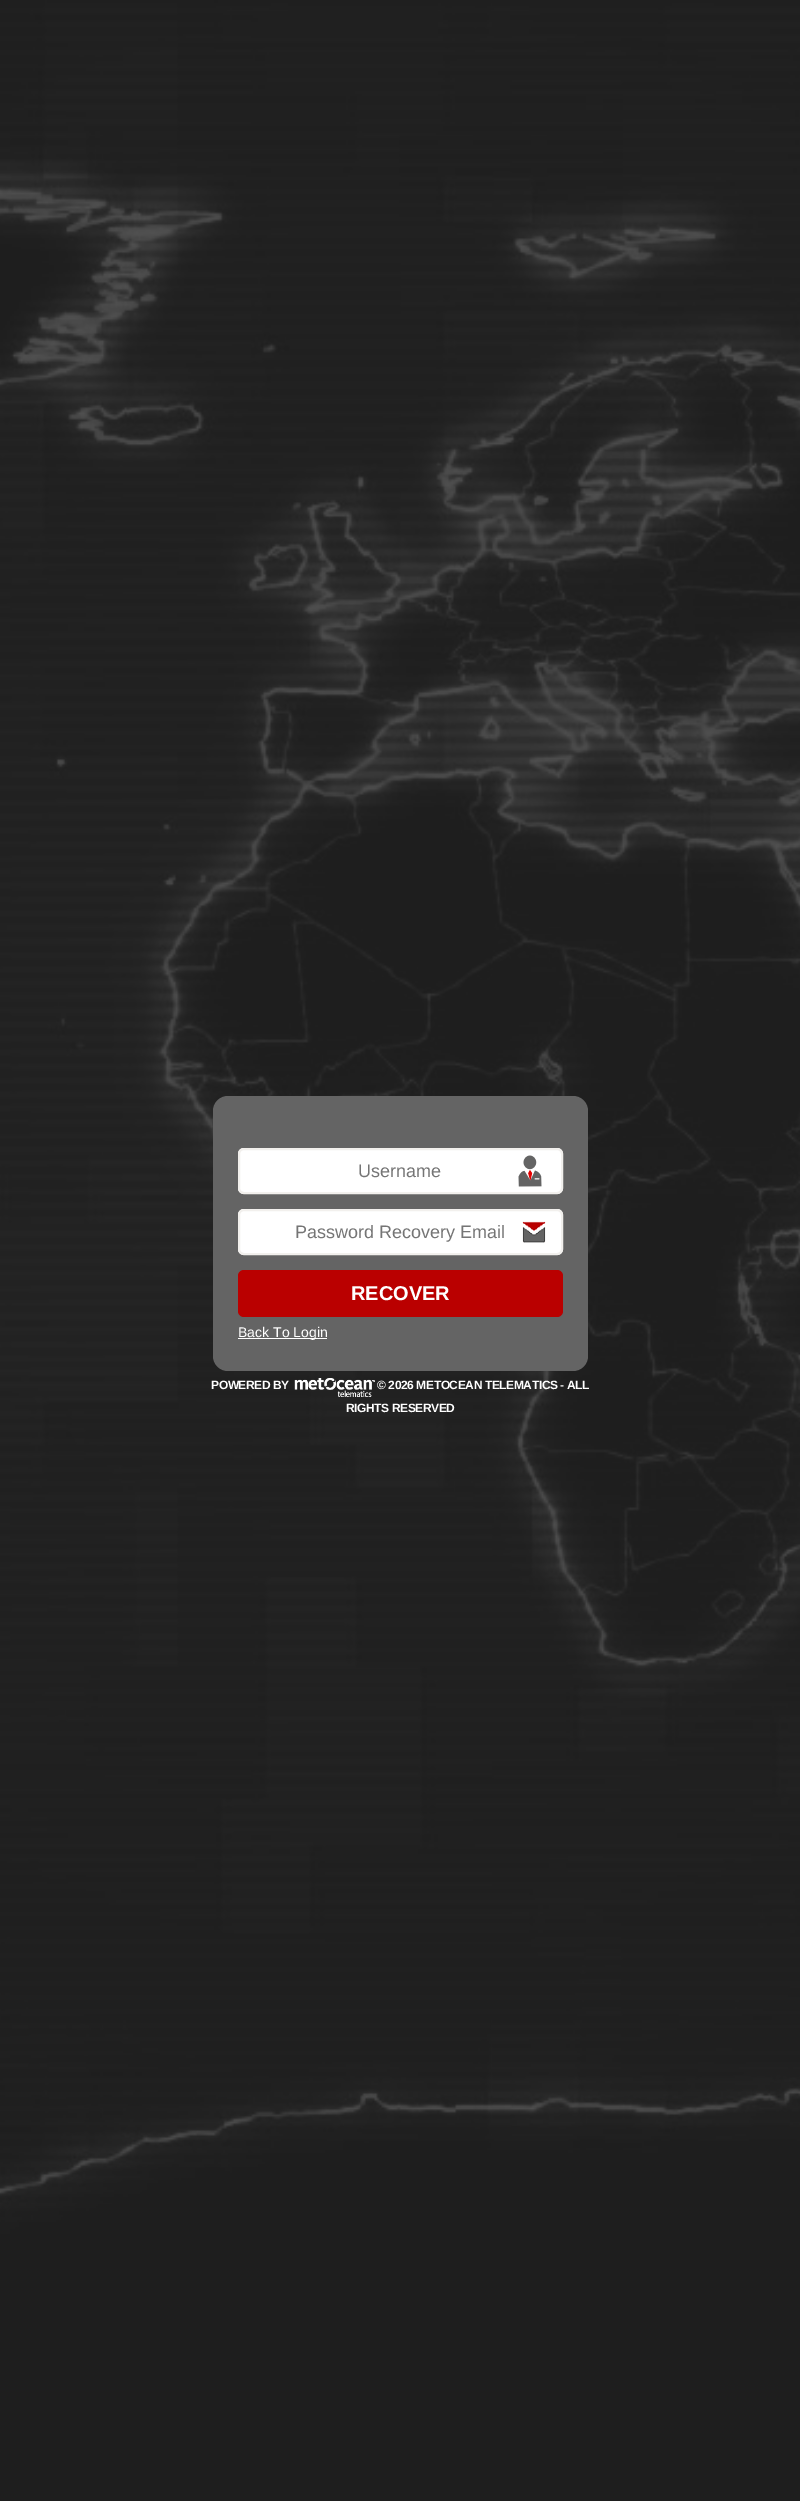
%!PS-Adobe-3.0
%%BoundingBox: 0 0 800 2501
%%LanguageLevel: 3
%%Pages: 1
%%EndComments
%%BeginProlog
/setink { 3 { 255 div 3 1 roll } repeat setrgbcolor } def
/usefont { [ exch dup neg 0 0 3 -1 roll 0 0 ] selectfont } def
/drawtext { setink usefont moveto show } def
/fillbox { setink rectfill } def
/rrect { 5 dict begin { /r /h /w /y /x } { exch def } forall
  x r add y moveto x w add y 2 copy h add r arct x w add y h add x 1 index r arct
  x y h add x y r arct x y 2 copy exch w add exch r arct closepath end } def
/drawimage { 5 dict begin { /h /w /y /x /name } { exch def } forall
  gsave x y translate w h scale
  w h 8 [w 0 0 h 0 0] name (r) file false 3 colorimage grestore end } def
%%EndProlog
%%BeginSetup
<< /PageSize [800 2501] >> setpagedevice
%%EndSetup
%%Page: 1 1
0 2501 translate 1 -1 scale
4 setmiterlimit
0 0 800 2501 255 255 255 fillbox
(assets/img1.rgb) 0 0 800 2501 drawimage
100 100 100 setink
213 1096 375 275 15 rrect fill
255 255 255 setink
238 1148 325 46 6 rrect fill
(assets/img2.rgb) 518 1155 24 32 drawimage
242 240 237 setink
2 setlinewidth
239 1149 323 44 5 rrect stroke
(Username) 358 1177 /LiberationSans-Regular 18 117 117 117 drawtext
255 255 255 setink
238 1209 325 46 6 rrect fill
(assets/img3.rgb) 522 1221 24 22 drawimage
242 240 237 setink
239 1210 323 44 5 rrect stroke
(Password Recovery Email) 295 1238 /LiberationSans-Regular 18 117 117 117 drawtext
186 0 0 setink
238 1270 325 47 6 rrect fill
(RECOVER) 351 1300 /LiberationSans-Bold 20 255 255 255 drawtext
238 1338 89 1 255 255 255 fillbox
(Back To Login) 238 1337 /LiberationSans-Regular 14 255 255 255 drawtext
/LiberationSans-Bold 12 usefont
211 1389 moveto -0.4 0 (POWERED BY) ashow
(assets/img4.rgb) 294 1378 81 19 drawimage
377 1389 moveto -0.4 0 (© 2026 METOCEAN TELEMATICS - ALL) ashow
346 1412 moveto -0.4 0 (RIGHTS RESERVED) ashow
showpage
%%EOF
